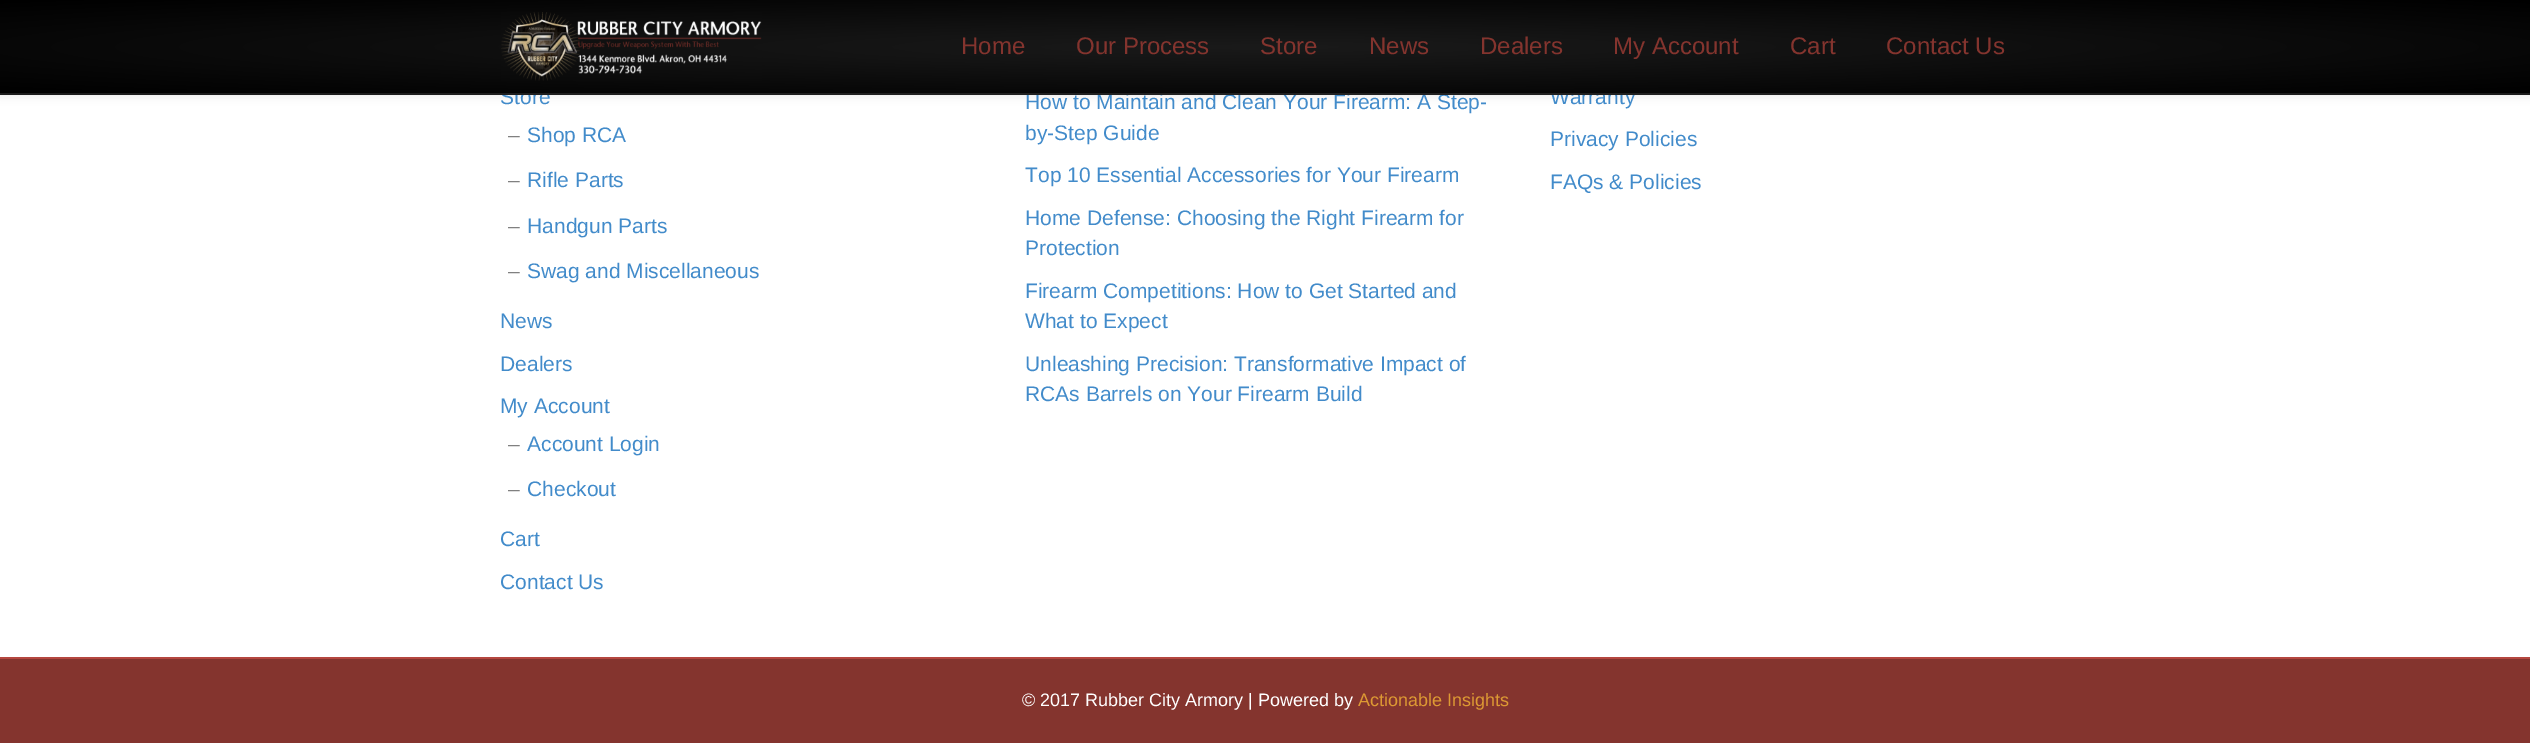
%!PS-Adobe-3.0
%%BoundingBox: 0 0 2530 743
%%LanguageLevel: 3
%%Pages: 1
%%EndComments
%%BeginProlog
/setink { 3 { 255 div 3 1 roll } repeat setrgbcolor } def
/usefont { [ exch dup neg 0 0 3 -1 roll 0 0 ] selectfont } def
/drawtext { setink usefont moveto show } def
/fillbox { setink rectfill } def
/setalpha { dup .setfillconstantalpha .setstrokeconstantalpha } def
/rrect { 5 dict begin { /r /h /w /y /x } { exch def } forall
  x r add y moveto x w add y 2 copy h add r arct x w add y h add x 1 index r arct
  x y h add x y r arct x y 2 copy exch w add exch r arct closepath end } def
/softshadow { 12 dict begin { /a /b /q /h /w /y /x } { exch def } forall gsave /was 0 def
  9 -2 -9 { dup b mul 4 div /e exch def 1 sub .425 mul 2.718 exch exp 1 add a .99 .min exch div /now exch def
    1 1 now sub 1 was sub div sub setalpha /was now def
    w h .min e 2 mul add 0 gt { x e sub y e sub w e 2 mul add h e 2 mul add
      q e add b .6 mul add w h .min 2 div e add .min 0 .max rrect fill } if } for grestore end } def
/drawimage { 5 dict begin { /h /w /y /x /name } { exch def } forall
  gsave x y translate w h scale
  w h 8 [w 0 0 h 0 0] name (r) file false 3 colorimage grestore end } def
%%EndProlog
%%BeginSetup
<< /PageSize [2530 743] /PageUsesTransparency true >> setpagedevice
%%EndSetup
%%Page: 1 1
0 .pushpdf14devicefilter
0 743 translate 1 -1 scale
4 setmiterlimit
0 0 2530 743 255 255 255 fillbox
0 0 0 setink
0 0 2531 95 0 5 0.1 softshadow
(Store) 500 104 /LiberationSans-Regular 21 66 139 202 drawtext
(How to Maintain and Clean Your Firearm: A Step-) 1025 109 /LiberationSans-Regular 21 66 139 202 drawtext
(Warranty) 1550 104 /LiberationSans-Regular 21 66 139 202 drawtext
gsave 0 0 moveto 2530 0 lineto 2530 95 lineto 0 95 lineto closepath clip newpath 1265 47 translate 1789 67 scale
<< /ShadingType 3 /ColorSpace /DeviceRGB /Coords [0 0 0 0 0 1] /Extend [true true] /Function << /FunctionType 2 /Domain [0 1] /C0 [0.102 0.102 0.102] /C1 [0 0 0] /N 1 >> >> shfill grestore
0.13 setalpha
0 93 2530 2 206 206 206 fillbox
1 setalpha
(assets/img1.rgb) 501 12 261 69 drawimage
(Home) 961 54 /LiberationSans-Regular 24 132 52 46 drawtext
(Our Process) 1076 54 /LiberationSans-Regular 24 132 52 46 drawtext
(Store) 1260 54 /LiberationSans-Regular 24 132 52 46 drawtext
(News) 1369 54 /LiberationSans-Regular 24 132 52 46 drawtext
(Dealers) 1480 54 /LiberationSans-Regular 24 132 52 46 drawtext
(My Account) 1613 54 /LiberationSans-Regular 24 132 52 46 drawtext
(Cart) 1790 54 /LiberationSans-Regular 24 132 52 46 drawtext
(Contact Us) 1886 54 /LiberationSans-Regular 24 132 52 46 drawtext
(–) 508 142 /LiberationSans-Regular 21 128 128 128 drawtext
(Shop RCA) 527 142 /LiberationSans-Regular 21 66 139 202 drawtext
(–) 508 187 /LiberationSans-Regular 21 128 128 128 drawtext
(Rifle Parts) 527 187 /LiberationSans-Regular 21 66 139 202 drawtext
(–) 508 233 /LiberationSans-Regular 21 128 128 128 drawtext
(Handgun Parts) 527 233 /LiberationSans-Regular 21 66 139 202 drawtext
(–) 508 278 /LiberationSans-Regular 21 128 128 128 drawtext
(Swag and Miscellaneous) 527 278 /LiberationSans-Regular 21 66 139 202 drawtext
(News) 500 328 /LiberationSans-Regular 21 66 139 202 drawtext
(Dealers) 500 371 /LiberationSans-Regular 21 66 139 202 drawtext
(My Account) 500 413 /LiberationSans-Regular 21 66 139 202 drawtext
(–) 508 451 /LiberationSans-Regular 21 128 128 128 drawtext
(Account Login) 527 451 /LiberationSans-Regular 21 66 139 202 drawtext
(–) 508 496 /LiberationSans-Regular 21 128 128 128 drawtext
(Checkout) 527 496 /LiberationSans-Regular 21 66 139 202 drawtext
(Cart) 500 546 /LiberationSans-Regular 21 66 139 202 drawtext
(Contact Us) 500 589 /LiberationSans-Regular 21 66 139 202 drawtext
(by-Step Guide) 1025 140 /LiberationSans-Regular 21 66 139 202 drawtext
(Top 10 Essential Accessories for Your Firearm) 1025 182 /LiberationSans-Regular 21 66 139 202 drawtext
(Home Defense: Choosing the Right Firearm for) 1025 225 /LiberationSans-Regular 21 66 139 202 drawtext
(Protection) 1025 255 /LiberationSans-Regular 21 66 139 202 drawtext
(Firearm Competitions: How to Get Started and) 1025 298 /LiberationSans-Regular 21 66 139 202 drawtext
(What to Expect) 1025 328 /LiberationSans-Regular 21 66 139 202 drawtext
(Unleashing Precision: Transformative Impact of) 1025 371 /LiberationSans-Regular 21 66 139 202 drawtext
(RCAs Barrels on Your Firearm Build) 1025 401 /LiberationSans-Regular 21 66 139 202 drawtext
(Privacy Policies) 1550 146 /LiberationSans-Regular 21 66 139 202 drawtext
(FAQs & Policies) 1550 189 /LiberationSans-Regular 21 66 139 202 drawtext
0 659 2530 84 132 52 46 fillbox
0 657 2530 2 181 71 63 fillbox
(© 2017 Rubber City Armory | Powered by) 1022 706 /LiberationSans-Regular 18 255 255 255 drawtext
(Actionable Insights) 1358 706 /LiberationSans-Regular 18 221 153 51 drawtext
.poppdf14devicefilter showpage
%%EOF
